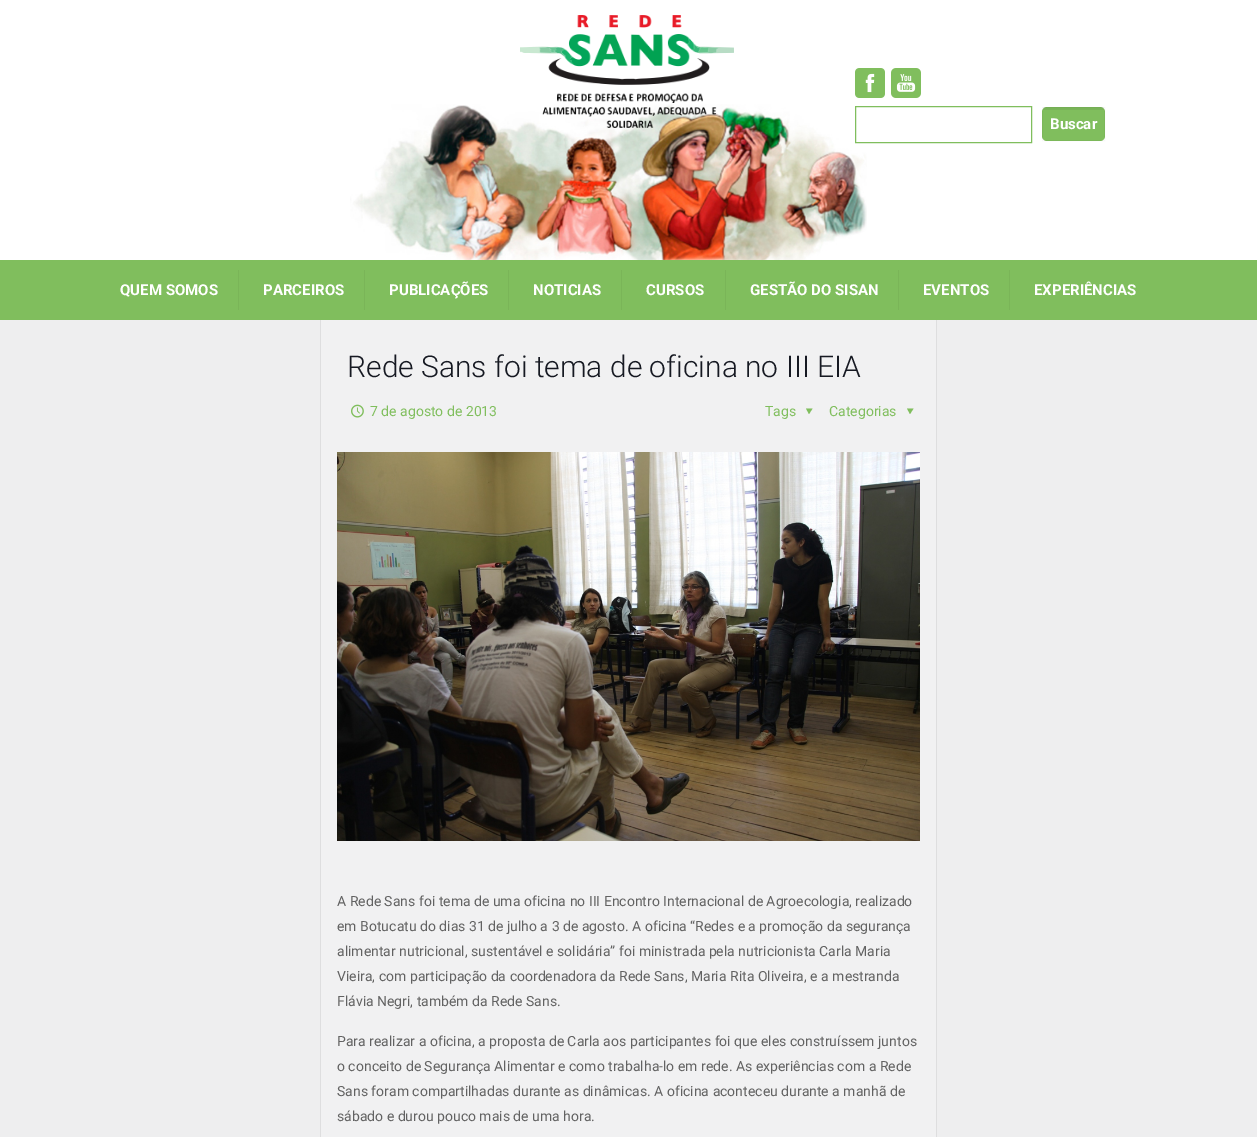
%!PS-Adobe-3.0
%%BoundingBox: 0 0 1257 1137
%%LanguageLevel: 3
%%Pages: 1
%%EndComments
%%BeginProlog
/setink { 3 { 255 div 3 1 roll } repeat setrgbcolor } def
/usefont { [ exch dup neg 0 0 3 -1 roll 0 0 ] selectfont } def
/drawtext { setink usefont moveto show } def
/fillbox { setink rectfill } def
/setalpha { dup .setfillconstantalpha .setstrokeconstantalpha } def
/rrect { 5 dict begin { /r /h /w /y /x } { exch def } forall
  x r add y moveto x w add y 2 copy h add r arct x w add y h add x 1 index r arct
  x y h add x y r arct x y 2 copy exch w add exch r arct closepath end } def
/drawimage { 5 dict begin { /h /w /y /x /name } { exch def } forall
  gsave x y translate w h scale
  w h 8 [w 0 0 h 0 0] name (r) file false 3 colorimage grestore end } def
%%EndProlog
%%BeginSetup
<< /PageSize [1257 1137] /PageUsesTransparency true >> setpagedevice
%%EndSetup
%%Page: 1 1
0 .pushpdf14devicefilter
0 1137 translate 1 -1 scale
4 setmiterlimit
0 0 1257 1137 241 241 242 fillbox
0 0 1257 260 255 255 255 fillbox
(assets/img2.rgb) 350 104 517 156 drawimage
(assets/img1.rgb) 520 15 214 113 drawimage
(assets/img3.rgb) 855 68 30 30 drawimage
(assets/img4.rgb) 891 68 30 30 drawimage
128 190 93 setink
855.5 106.5 176 36 rectstroke
1042 107 63 34 5 rrect fill
0.05 setalpha
1043 107 61 3 0 0 0 fillbox
0.03 setalpha
1042.5 107.5 62 33 rectstroke
1 setalpha
(Buscar) 1050 129 /Roboto-Bold 15 255 255 255 drawtext
0 260 1257 60 128 190 93 fillbox
238 270 1 40 122 181 88 fillbox
(QUEM SOMOS) 120 295 /Roboto-Bold 15 255 255 255 drawtext
364 270 1 40 122 181 88 fillbox
(PARCEIROS) 263 295 /Roboto-Bold 15 255 255 255 drawtext
508 270 1 40 122 181 88 fillbox
(PUBLICAÇÕES) 389 295 /Roboto-Bold 15 255 255 255 drawtext
621 270 1 40 122 181 88 fillbox
(NOTICIAS) 533 295 /Roboto-Bold 15 255 255 255 drawtext
725 270 1 40 122 181 88 fillbox
(CURSOS) 646 295 /Roboto-Bold 15 255 255 255 drawtext
898 270 1 40 122 181 88 fillbox
(GESTÃO DO SISAN) 750 295 /Roboto-Bold 15 255 255 255 drawtext
1009 270 1 40 122 181 88 fillbox
(EVENTOS) 923 295 /Roboto-Bold 15 255 255 255 drawtext
(EXPERIÊNCIAS) 1034 295 /Roboto-Bold 15 255 255 255 drawtext
320 320 1 817 222 222 223 fillbox
0 320 320 817 238 238 239 fillbox
(Rede Sans foi tema de oficina no III EIA) 347 377 /Roboto-Light 30 22 25 34 drawtext
(assets/img5.rgb) 351 404 13 14 drawimage
(7 de agosto de 2013) 370 416 /Roboto-Regular 14 128 190 93 drawtext
(Tags) 765 416 /Roboto-Regular 14 128 190 93 drawtext
812.5 408.5 moveto 809 414 lineto 806 408.5 lineto closepath fill
(Categorias) 829 416 /Roboto-Regular 14 128 190 93 drawtext
913.5 408.5 moveto 910 414 lineto 907 408.5 lineto closepath fill
(assets/img6.rgb) 337 452 583 389 drawimage
(A Rede Sans foi tema de uma oficina no III Encontro Internacional de Agroecologia, realizado) 337 906 /Roboto-Regular 14 98 98 98 drawtext
(em Botucatu do dias 31 de julho a 3 de agosto. A oficina “Redes e a promoção da segurança) 337 931 /Roboto-Regular 14 98 98 98 drawtext
(alimentar nutricional, sustentável e solidária” foi ministrada pela nutricionista Carla Maria) 337 956 /Roboto-Regular 14 98 98 98 drawtext
(Vieira, com participação da coordenadora da Rede Sans, Maria Rita Oliveira, e a mestranda) 337 981 /Roboto-Regular 14 98 98 98 drawtext
(Flávia Negri, também da Rede Sans.) 337 1006 /Roboto-Regular 14 98 98 98 drawtext
(Para realizar a oficina, a proposta de Carla aos participantes foi que eles construíssem juntos) 337 1046 /Roboto-Regular 14 98 98 98 drawtext
(o conceito de Segurança Alimentar e como trabalha-lo em rede. As experiências com a Rede) 337 1071 /Roboto-Regular 14 98 98 98 drawtext
(Sans foram compartilhadas durante as dinâmicas. A oficina aconteceu durante a manhã de) 337 1096 /Roboto-Regular 14 98 98 98 drawtext
(sábado e durou pouco mais de uma hora.) 337 1121 /Roboto-Regular 14 98 98 98 drawtext
936 320 1 817 222 222 223 fillbox
937 320 320 817 238 238 239 fillbox
.poppdf14devicefilter showpage
%%EOF
